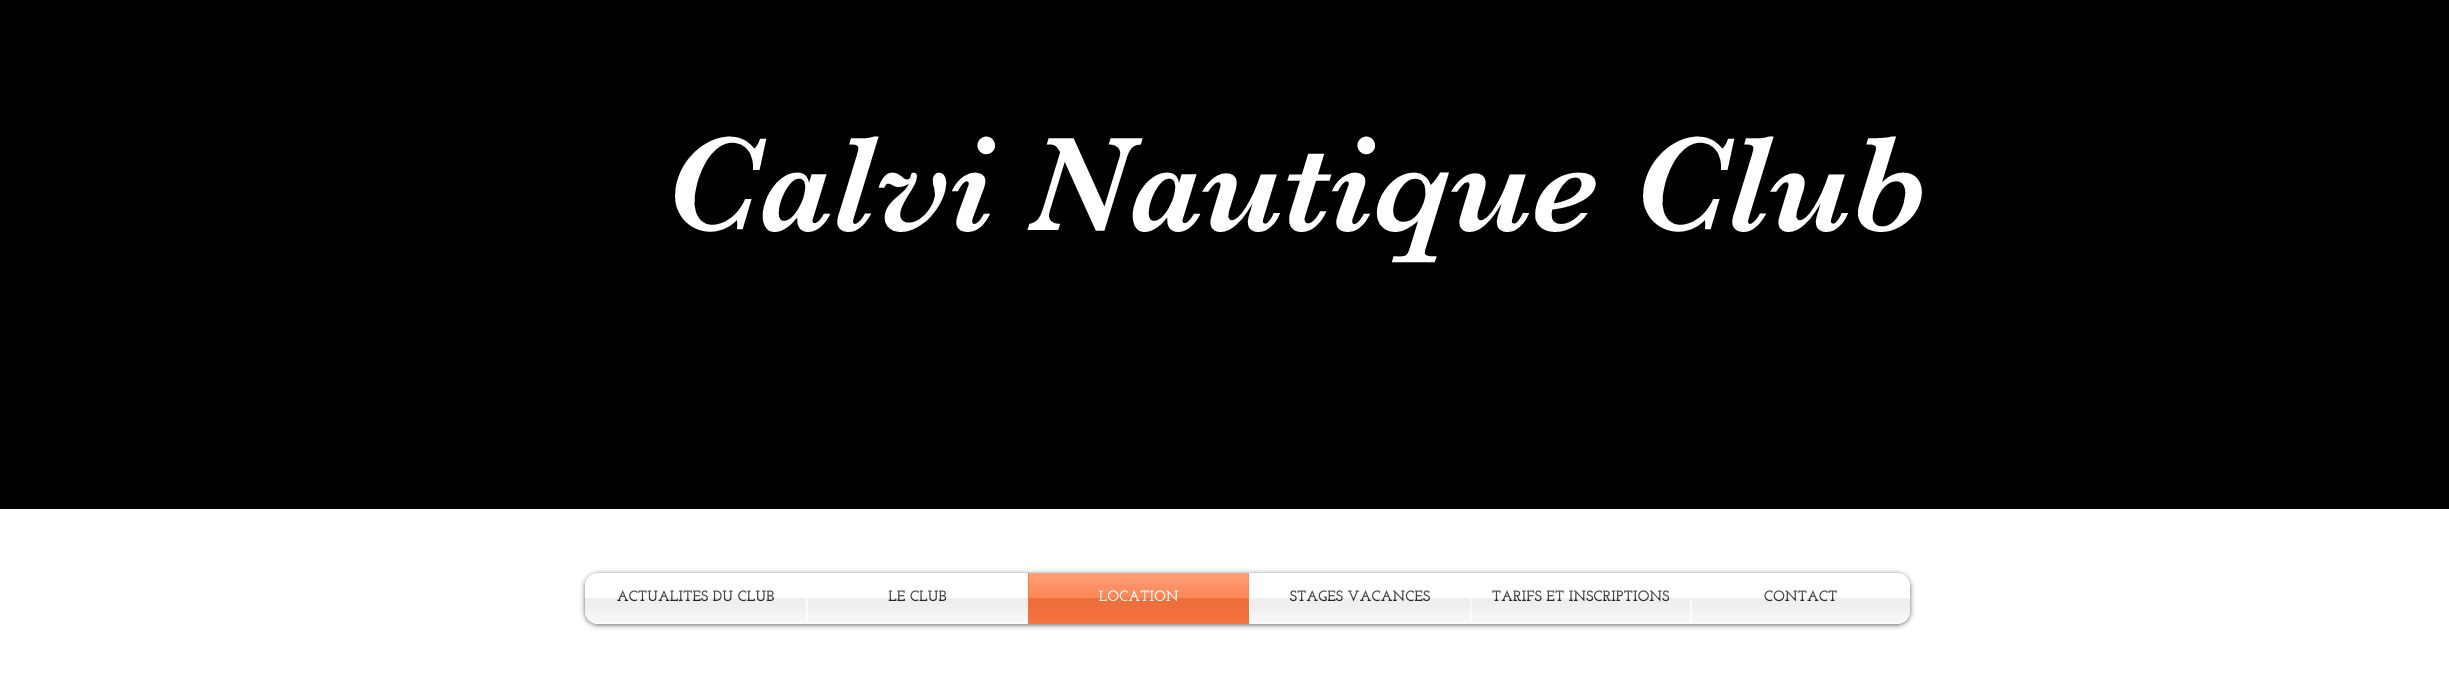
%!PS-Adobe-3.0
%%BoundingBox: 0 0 2449 695
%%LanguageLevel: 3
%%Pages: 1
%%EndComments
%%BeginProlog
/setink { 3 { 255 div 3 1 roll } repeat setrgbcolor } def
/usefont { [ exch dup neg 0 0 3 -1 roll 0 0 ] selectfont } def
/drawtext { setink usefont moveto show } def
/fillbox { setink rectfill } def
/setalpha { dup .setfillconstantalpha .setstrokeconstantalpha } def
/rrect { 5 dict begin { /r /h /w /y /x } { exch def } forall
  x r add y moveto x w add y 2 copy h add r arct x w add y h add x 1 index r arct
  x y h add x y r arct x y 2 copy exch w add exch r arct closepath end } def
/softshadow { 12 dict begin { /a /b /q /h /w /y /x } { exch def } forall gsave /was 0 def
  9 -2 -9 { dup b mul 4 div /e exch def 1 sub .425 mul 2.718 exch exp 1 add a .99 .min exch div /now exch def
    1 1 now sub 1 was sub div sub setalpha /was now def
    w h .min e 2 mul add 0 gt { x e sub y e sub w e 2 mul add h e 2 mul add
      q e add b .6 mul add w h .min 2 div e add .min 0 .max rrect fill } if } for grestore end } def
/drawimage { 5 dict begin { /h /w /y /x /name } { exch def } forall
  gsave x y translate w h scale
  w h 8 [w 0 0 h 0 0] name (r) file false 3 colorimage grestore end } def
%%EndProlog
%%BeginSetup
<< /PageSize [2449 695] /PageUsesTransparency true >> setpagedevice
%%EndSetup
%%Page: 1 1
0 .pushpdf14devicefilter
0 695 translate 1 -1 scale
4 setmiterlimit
0 0 2449 695 255 255 255 fillbox
0 0 2449 509 0 0 0 fillbox
(Calvi Nautique Club) 664 230 /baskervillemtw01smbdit-Regular 138.75 255 255 255 drawtext
0 0 0 setink
585 574 1325 51 13 2.5 0.6 softshadow
(assets/img1.rgb) 585 611 1325 11 drawimage
255 255 255 setink
598 573 moveto 806 573 lineto 806 624 lineto 598 624 lineto 591 624 585 618 585 611 curveto 585 586 lineto 585 579 591 573 598 573 curveto closepath fill
(ACTUALITES DU CLUB) 617 601 /JosefinSlab-Bold 15 42 42 42 drawtext
(assets/img2.rgb) 585 590 221 33 drawimage
806 573 222 51 255 255 255 fillbox
(LE CLUB) 888 601 /JosefinSlab-Bold 15 42 42 42 drawtext
(assets/img3.rgb) 807 590 221 33 drawimage
1028 573 221 51 253 118 63 fillbox
(LOCATION) 1099 601 /JosefinSlab-Bold 15 255 255 255 drawtext
(assets/img4.rgb) 1028 573 221 50 drawimage
1249 573 441 51 255 255 255 fillbox
(STAGES VACANCES) 1290 601 /JosefinSlab-Bold 15 42 42 42 drawtext
(assets/img5.rgb) 1250 590 220 33 drawimage
(TARIFS ET INSCRIPTIONS) 1492 601 /JosefinSlab-Bold 15 42 42 42 drawtext
(assets/img6.rgb) 1471 590 219 33 drawimage
255 255 255 setink
1690 573 moveto 1897 573 lineto 1904 573 1910 579 1910 586 curveto 1910 611 lineto 1910 618 1904 624 1897 624 curveto 1690 624 lineto closepath fill
(CONTACT) 1764 601 /JosefinSlab-Bold 15 42 42 42 drawtext
(assets/img7.rgb) 1691 590 219 33 drawimage
.poppdf14devicefilter showpage
%%EOF
